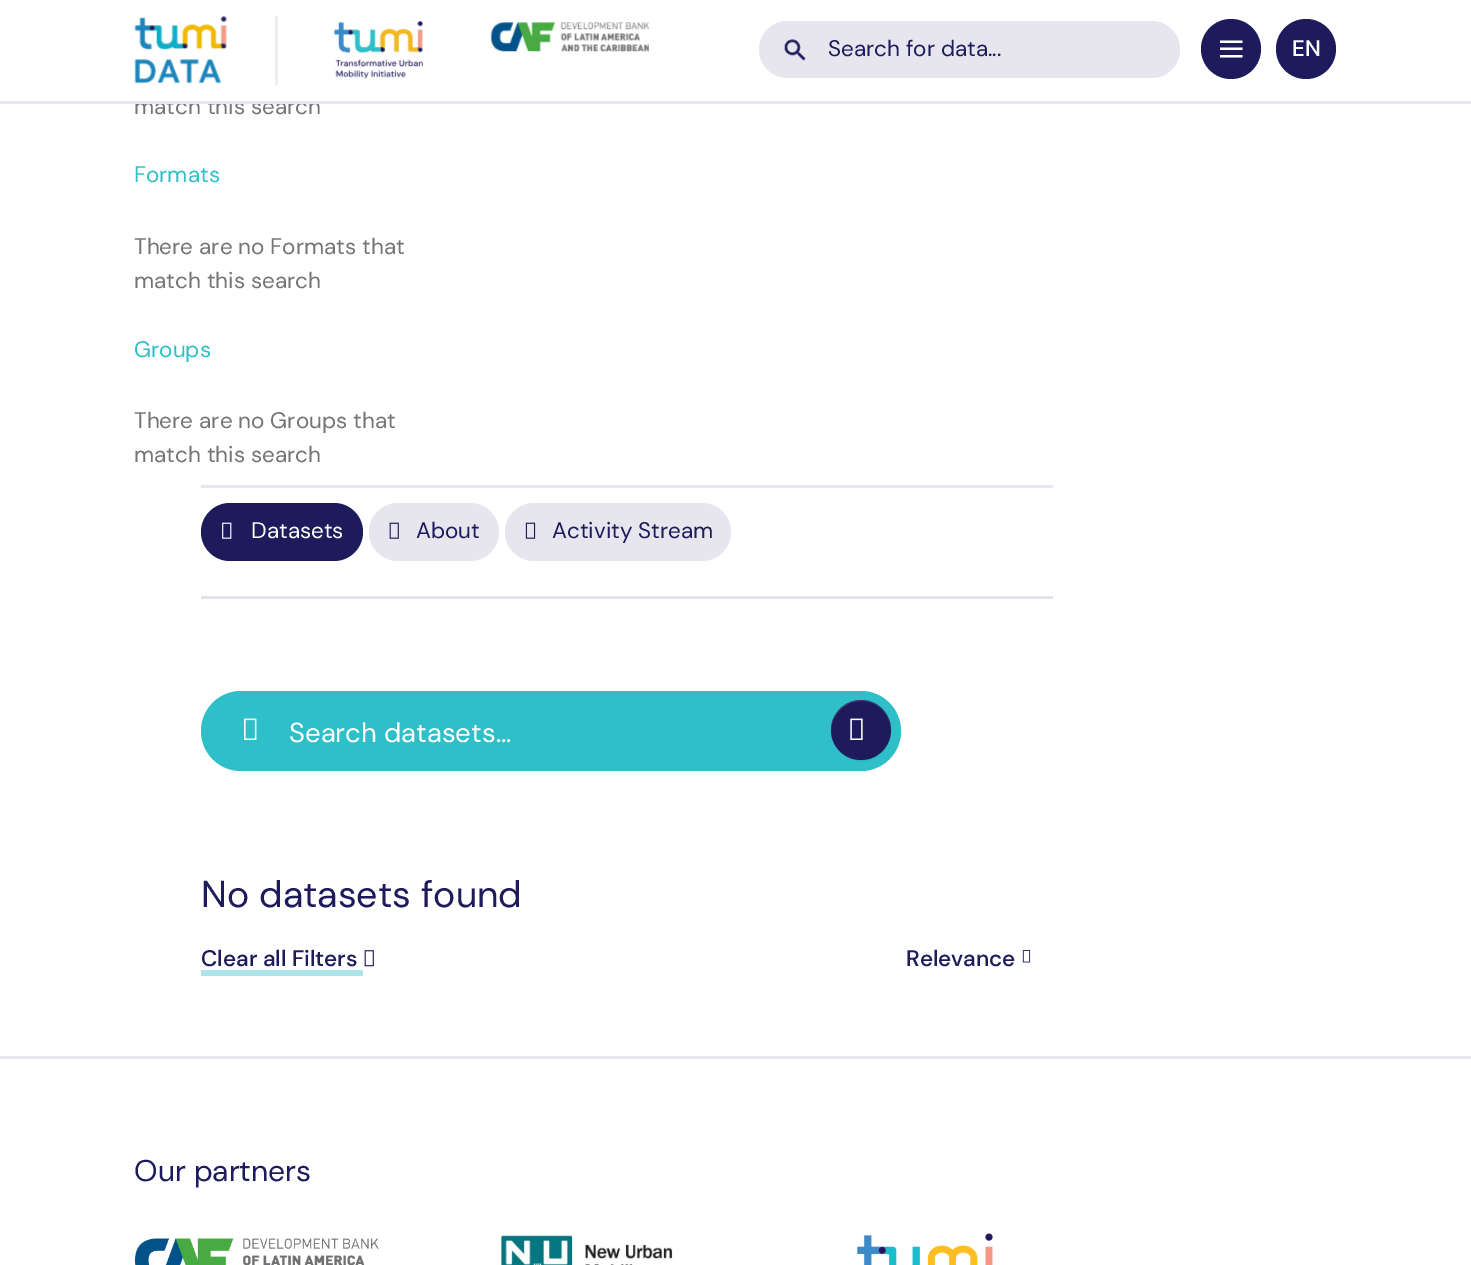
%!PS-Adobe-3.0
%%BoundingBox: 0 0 1471 1265
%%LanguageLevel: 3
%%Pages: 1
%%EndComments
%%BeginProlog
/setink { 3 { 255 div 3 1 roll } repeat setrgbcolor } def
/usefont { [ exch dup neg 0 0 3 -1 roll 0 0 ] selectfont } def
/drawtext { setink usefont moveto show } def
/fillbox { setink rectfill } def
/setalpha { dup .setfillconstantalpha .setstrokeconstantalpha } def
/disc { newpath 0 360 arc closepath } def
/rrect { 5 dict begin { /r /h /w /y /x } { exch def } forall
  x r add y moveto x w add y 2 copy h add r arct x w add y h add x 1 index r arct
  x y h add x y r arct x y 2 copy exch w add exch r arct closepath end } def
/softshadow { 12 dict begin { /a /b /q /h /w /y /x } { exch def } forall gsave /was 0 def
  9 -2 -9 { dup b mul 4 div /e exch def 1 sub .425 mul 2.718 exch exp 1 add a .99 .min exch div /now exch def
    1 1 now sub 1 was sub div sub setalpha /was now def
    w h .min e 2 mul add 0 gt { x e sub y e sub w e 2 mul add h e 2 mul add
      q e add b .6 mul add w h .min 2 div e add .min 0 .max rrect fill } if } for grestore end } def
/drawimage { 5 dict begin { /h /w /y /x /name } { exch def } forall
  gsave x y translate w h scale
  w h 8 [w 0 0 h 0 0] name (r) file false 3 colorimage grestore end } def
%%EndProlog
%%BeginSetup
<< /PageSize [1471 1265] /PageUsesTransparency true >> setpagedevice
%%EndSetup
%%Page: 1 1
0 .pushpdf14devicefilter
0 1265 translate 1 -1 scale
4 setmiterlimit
0 0 1471 1265 255 255 255 fillbox
(match this search) 134 114 /DMSans-Regular 22.5 118 116 117 drawtext
169 97 143 4 255 255 255 fillbox
0 101 1471 3 231 230 238 fillbox
275 16 3 69 238 238 238 fillbox
(assets/img1.rgb) 134 16 93 68 drawimage
(assets/img2.rgb) 333 21 90 58 drawimage
(assets/img3.rgb) 490 22 159 30 drawimage
231 230 238 setink
759 21 421 57 28.5 rrect fill
(assets/img4.rgb) 784 39 22 22 drawimage
(Search for data...) 828 56 /DMSans-Regular 22.5 29 27 92 drawtext
1231 49 30 disc fill
255 255 255 setink
1242.5 43 moveto 1220 43 lineto 1220 40.5 lineto 1242.5 40.5 lineto closepath 1242.5 50 moveto 1220 50 lineto 1220 47.5 lineto 1242.5 47.5 lineto closepath 1220 57.5 moveto 1242.5 57.5 lineto 1242.5 55 lineto 1220 55 lineto closepath eofill
29 27 92 setink
1306 49 30 disc fill
(EN) 1292 56 /DMSans-Medium 22.5 255 255 255 drawtext
(Formats) 134 182 /DMSans-Regular 22.5 47 191 200 drawtext
(There are no Formats that) 134 254 /DMSans-Regular 22.5 118 116 117 drawtext
(match this search) 134 288 /DMSans-Regular 22.5 118 116 117 drawtext
(Groups) 134 357 /DMSans-Regular 22.5 47 191 200 drawtext
(There are no Groups that) 134 428 /DMSans-Regular 22.5 118 116 117 drawtext
(match this search) 134 462 /DMSans-Regular 22.5 118 116 117 drawtext
201 485 852 3 231 230 238 fillbox
201 596 852 3 227 225 235 fillbox
29 27 92 setink
201 503 162 58 29 rrect fill
(assets/img5.rgb) 222 522 10 17 drawimage
(Datasets) 251 538 /DMSans-Regular 22.5 255 255 255 drawtext
231 230 238 setink
369 503 130 58 29 rrect fill
(assets/img6.rgb) 389 522 10 17 drawimage
(About) 416 538 /DMSans-Regular 22.5 29 27 92 drawtext
231 230 238 setink
505 503 226 58 29 rrect fill
(assets/img7.rgb) 525 522 11 17 drawimage
(Activity Stream) 552 538 /DMSans-Regular 22.5 29 27 92 drawtext
47 191 200 setink
201 691 700 80 40 rrect fill
(assets/img8.rgb) 244 718 13 22 drawimage
(Search datasets...) 289 742 /DMSans-Regular 27.5 255 255 255 drawtext
0 0 0 setink
831 701 60 60 30 0.5 0.07 softshadow
29 27 92 setink
861 730 30 disc fill
0.15 setalpha
255 255 255 setink
861 701 moveto 878 701 891 715 891 731 curveto 891 701 853 689 836 713 curveto 833 718 831 724 831 731 curveto 831 715 845 701 861 701 curveto closepath fill
1 setalpha
(assets/img9.rgb) 850 718 13 22 drawimage
(No datasets found) 201 907 /DMSans-Regular 37.5 29 27 92 drawtext
(Clear all Filters) 201 966 /DMSans-Medium 22.5 29 27 92 drawtext
201 970 162 6 172 229 233 fillbox
(assets/img10.rgb) 364 950 10 17 drawimage
(Relevance) 906 966 /DMSans-Medium 22.5 29 27 92 drawtext
(assets/img11.rgb) 1022 950 9 13 drawimage
0 1056 1471 3 231 230 238 fillbox
(Our partners) 134 1181 /DMSans-Regular 30 29 27 92 drawtext
(assets/img12.rgb) 135 1238 244 27 drawimage
(assets/img13.rgb) 500 1235 173 30 drawimage
(assets/img14.rgb) 857 1233 136 32 drawimage
.poppdf14devicefilter showpage
%%EOF
